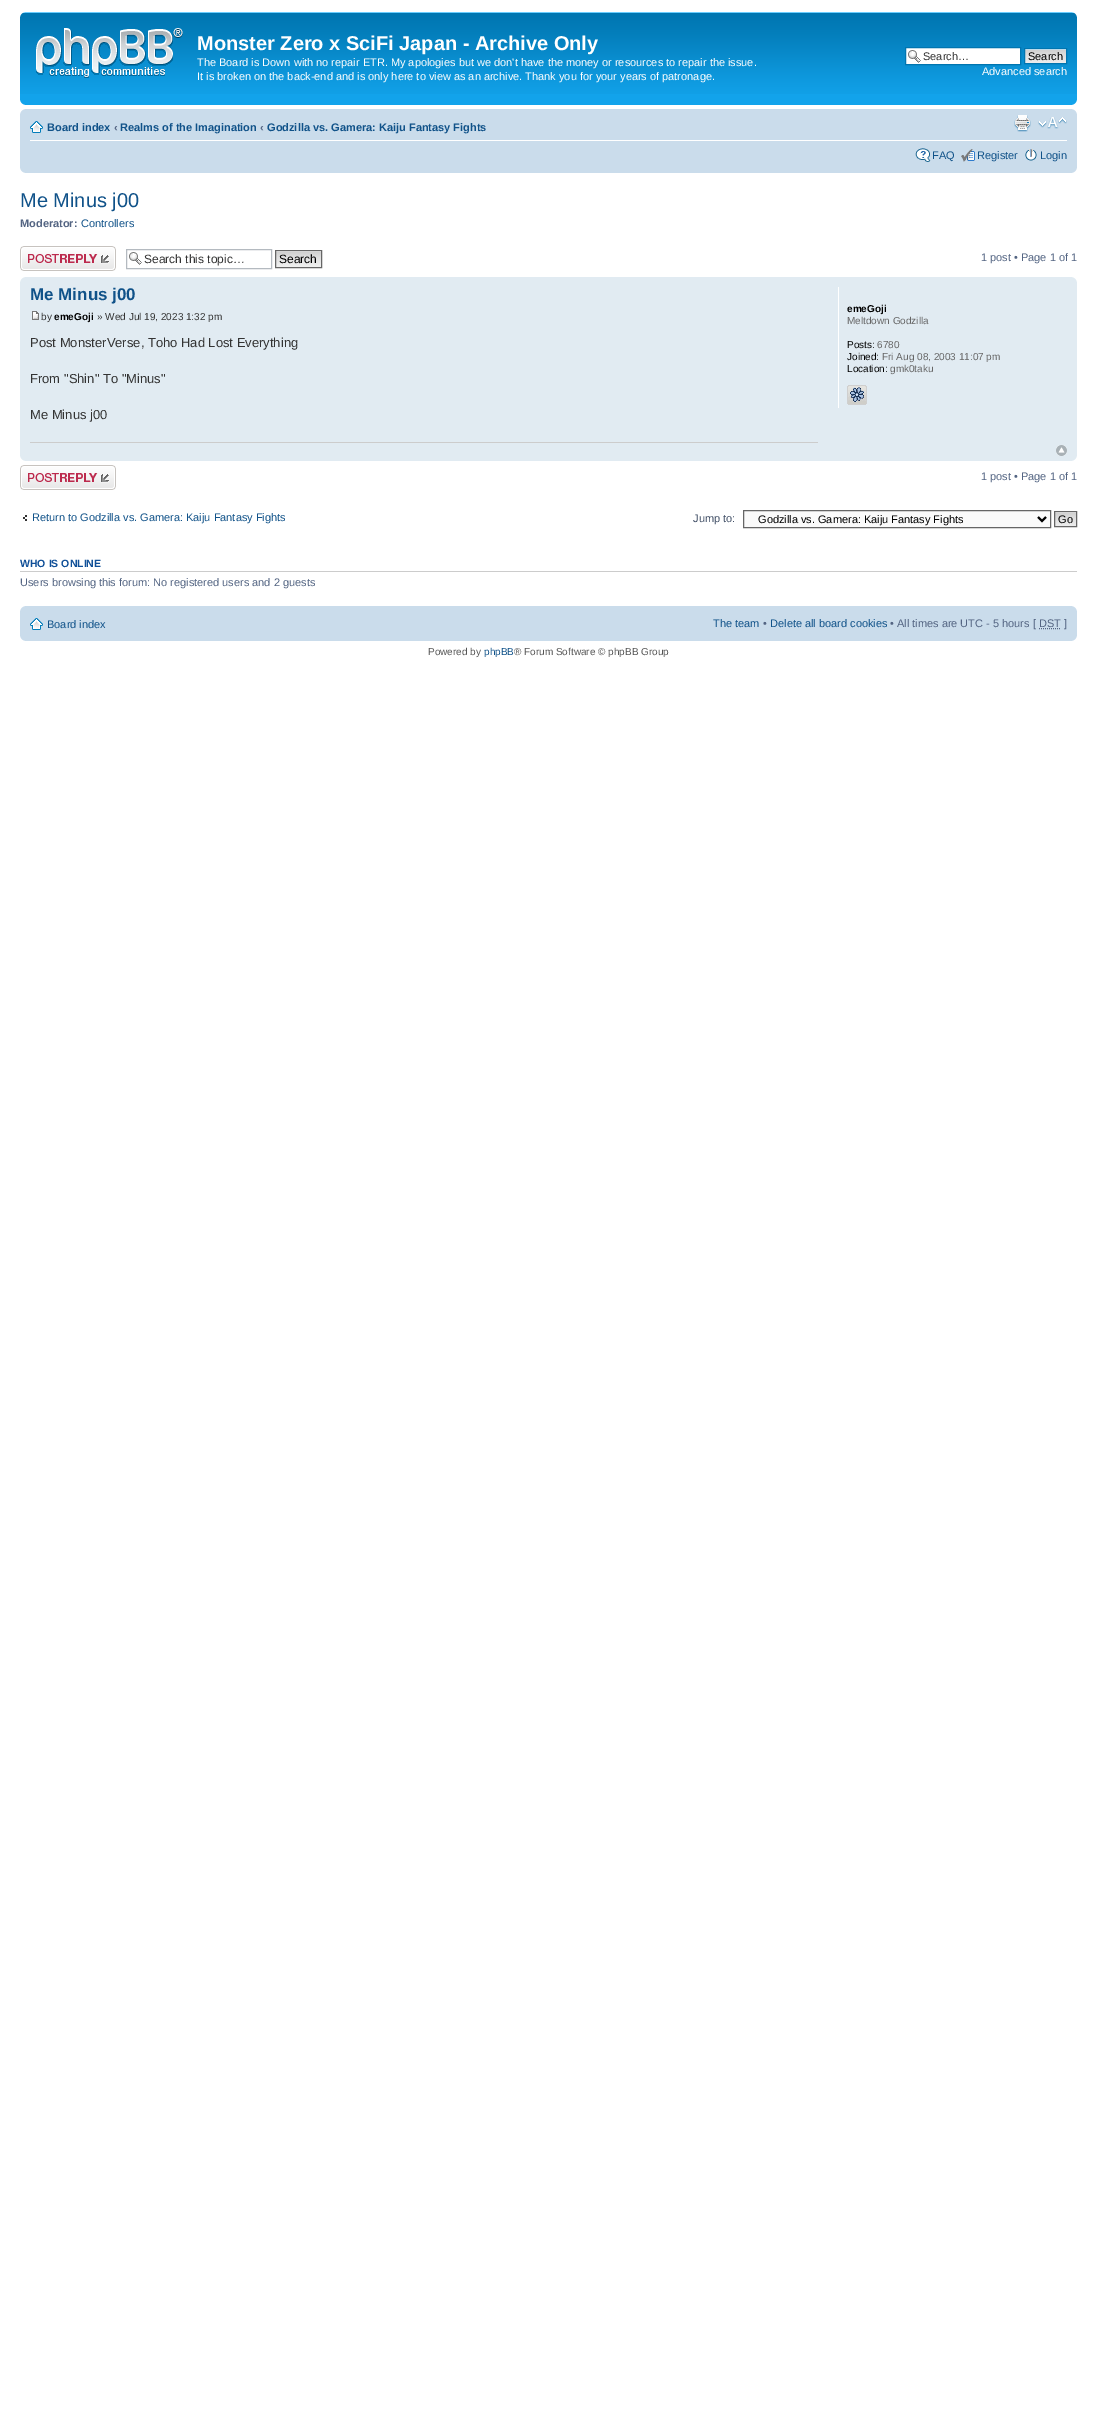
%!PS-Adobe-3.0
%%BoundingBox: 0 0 1097 2429
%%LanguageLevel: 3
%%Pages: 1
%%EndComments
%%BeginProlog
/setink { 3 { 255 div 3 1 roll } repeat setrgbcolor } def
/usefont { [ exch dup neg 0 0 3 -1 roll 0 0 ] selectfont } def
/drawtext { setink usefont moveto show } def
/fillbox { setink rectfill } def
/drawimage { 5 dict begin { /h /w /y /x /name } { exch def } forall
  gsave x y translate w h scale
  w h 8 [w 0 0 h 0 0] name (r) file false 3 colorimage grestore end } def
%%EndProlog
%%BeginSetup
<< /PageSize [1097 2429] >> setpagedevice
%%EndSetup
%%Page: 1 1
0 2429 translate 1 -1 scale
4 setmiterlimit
0 0 1097 2429 255 255 255 fillbox
20 94 1057 11 18 163 235 fillbox
(assets/img1.rgb) 20 12 1057 82 drawimage
(assets/img2.rgb) 20 12 5 5 drawimage
(assets/img3.rgb) 1072 12 5 5 drawimage
(assets/img4.rgb) 36 28 147 50 drawimage
(Monster Zero x SciFi Japan - Archive Only) 197 50 /LiberationSans-Bold 20 255 255 255 drawtext
(The Board is Down with no repair ETR. My apologies but we don't have the money or resources to repair the issue.) 197 66 /LiberationSans-Regular 11 255 255 255 drawtext
(It is broken on the back-end and is only here to view as an archive. Thank you for your years of patronage.) 197 80 /LiberationSans-Regular 11 255 255 255 drawtext
906 48 114 16 255 255 255 fillbox
(assets/img5.rgb) 908 50 13 13 drawimage
0 117 176 setink
905.5 47.5 115 17 rectstroke
(Search…) 923 60 /LiberationSans-Regular 11 51 51 51 drawtext
(assets/img6.rgb) 1025 49 41 14 drawimage
0 117 176 setink
1024.5 48.5 42 15 rectstroke
(Search) 1028 60 /LiberationSans-Regular 11 0 0 0 drawtext
(Advanced search) 982 75 /LiberationSans-Regular 11 255 255 255 drawtext
(assets/img7.rgb) 20 100 5 5 drawimage
(assets/img8.rgb) 1072 100 5 5 drawimage
20 109 1057 64 202 220 235 fillbox
(assets/img9.rgb) 20 109 5 5 drawimage
(assets/img10.rgb) 1072 109 5 5 drawimage
30 140 1037 1 255 255 255 fillbox
(assets/img11.rgb) 30 121 13 12 drawimage
(Board index) 47 131 /LiberationSans-Bold 11 16 82 137 drawtext
(‹) 114 131 /LiberationSans-Bold 11 83 100 130 drawtext
(Realms of the Imagination) 120 131 /LiberationSans-Bold 11 16 82 137 drawtext
(‹) 260 131 /LiberationSans-Bold 11 83 100 130 drawtext
(Godzilla vs. Gamera: Kaiju Fantasy Fights) 267 131 /LiberationSans-Bold 11 16 82 137 drawtext
(assets/img12.rgb) 1014 115 17 17 drawimage
(assets/img13.rgb) 1038 117 29 12 drawimage
(assets/img14.rgb) 915 148 16 14 drawimage
(FAQ) 932 159 /LiberationSans-Regular 11 16 82 137 drawtext
(assets/img15.rgb) 961 149 14 13 drawimage
(Register) 977 159 /LiberationSans-Regular 11 16 82 137 drawtext
(assets/img16.rgb) 1025 149 12 12 drawimage
(Login) 1040 159 /LiberationSans-Regular 11 16 82 137 drawtext
(assets/img17.rgb) 20 168 5 5 drawimage
(assets/img18.rgb) 1072 168 5 5 drawimage
(Me Minus j00) 20 207 /LiberationSans-Regular 20 16 82 137 drawtext
(Moderator:) 20 227 /LiberationSans-Bold 11 83 100 130 drawtext
(Controllers) 81 227 /LiberationSans-Regular 11 16 82 137 drawtext
(assets/img19.rgb) 20 246 96 25 drawimage
(assets/img5.rgb) 129 252 13 13 drawimage
180 186 192 setink
126.5 249.5 145 19 rectstroke
(Search this topic…) 144 263 /LiberationSans-Regular 12 51 51 51 drawtext
(assets/img20.rgb) 276 251 45 16 drawimage
102 102 102 setink
275.5 250.5 46 17 rectstroke
(Search) 279 263 /LiberationSans-Regular 12 0 0 0 drawtext
(1 post • Page 1 of 1) 981 261 /LiberationSans-Regular 11 83 100 130 drawtext
20 277 1057 184 225 235 242 fillbox
(assets/img21.rgb) 20 277 5 5 drawimage
(assets/img22.rgb) 1072 277 5 5 drawimage
(Me Minus j00) 30 300 /LiberationSans-Bold 17 16 82 137 drawtext
(assets/img23.rgb) 32 311 7 9 drawimage
(by) 41 320 /LiberationSans-Regular 10 51 51 51 drawtext
(emeGoji) 54 320 /LiberationSans-Bold 10 0 0 0 drawtext
(» Wed Jul 19, 2023 1:32 pm) 97 320 /LiberationSans-Regular 10 51 51 51 drawtext
(Post MonsterVerse, Toho Had Lost Everything) 30 347 /LiberationSans-Regular 13 51 51 51 drawtext
(From "Shin" To "Minus") 30 383 /LiberationSans-Regular 13 51 51 51 drawtext
(Me Minus j00) 30 419 /LiberationSans-Regular 13 51 51 51 drawtext
30 442 788 1 204 204 204 fillbox
838 287 1 121 255 255 255 fillbox
(emeGoji) 847 312 /LiberationSans-Bold 10 0 0 0 drawtext
(Meltdown Godzilla) 847 324 /LiberationSans-Regular 10 102 102 102 drawtext
(Posts:) 847 348 /LiberationSans-Regular 10 0 0 0 drawtext
(6780) 877 348 /LiberationSans-Regular 10 102 102 102 drawtext
(Joined:) 847 360 /LiberationSans-Regular 10 0 0 0 drawtext
(Fri Aug 08, 2003 11:07 pm) 882 360 /LiberationSans-Regular 10 102 102 102 drawtext
(Location:) 847 372 /LiberationSans-Regular 10 0 0 0 drawtext
(gmk0taku) 890 372 /LiberationSans-Regular 10 102 102 102 drawtext
(assets/img24.rgb) 847 385 20 20 drawimage
(assets/img25.rgb) 1056 445 11 11 drawimage
(assets/img26.rgb) 20 456 5 5 drawimage
(assets/img27.rgb) 1072 456 5 5 drawimage
(assets/img19.rgb) 20 465 96 25 drawimage
(1 post • Page 1 of 1) 981 480 /LiberationSans-Regular 11 83 100 130 drawtext
(assets/img28.rgb) 23 515 4 6 drawimage
(Return to Godzilla vs. Gamera: Kaiju Fantasy Fights) 32 521 /LiberationSans-Regular 11 16 82 137 drawtext
(Jump to:) 693 522 /LiberationSans-Regular 11 66 80 103 drawtext
250 250 250 setink
743.5 510.5 moveto 1050.5 510.5 lineto 1050.5 527.5 lineto 743.5 527.5 lineto closepath gsave fill grestore
102 102 102 setink
stroke
0 0 0 setink
2 setlinewidth
1038 517 moveto 1042 521 lineto 1046 517 lineto stroke
(Godzilla vs. Gamera: Kaiju Fantasy Fights) 758 523 /LiberationSans-Regular 11 0 0 0 drawtext
(assets/img29.rgb) 1055 512 21 14 drawimage
102 102 102 setink
1 setlinewidth
1054.5 511.5 22 15 rectstroke
(Go) 1058 523 /LiberationSans-Regular 11 0 0 0 drawtext
20 571 1057 1 204 204 204 fillbox
(WHO IS ONLINE) 20 567 /LiberationSans-Bold 10.5 17 80 152 drawtext
(Users browsing this forum: No registered users and 2 guests) 20 586 /LiberationSans-Regular 11 83 100 130 drawtext
20 606 1057 35 202 220 235 fillbox
(assets/img9.rgb) 20 606 5 5 drawimage
(assets/img10.rgb) 1072 606 5 5 drawimage
(assets/img11.rgb) 30 618 13 12 drawimage
(Board index) 47 628 /LiberationSans-Regular 11 16 82 137 drawtext
(The team) 713 627 /LiberationSans-Regular 11 16 82 137 drawtext
(•) 763 627 /LiberationSans-Regular 11 83 100 130 drawtext
(Delete all board cookies) 770 627 /LiberationSans-Regular 11 16 82 137 drawtext
(• All times are UTC - 5 hours [ DST ]) 890 627 /LiberationSans-Regular 11 83 100 130 drawtext
[1 1] 0 setdash
1039 628.5 moveto 1061 628.5 lineto stroke
(assets/img17.rgb) 20 636 5 5 drawimage
(assets/img18.rgb) 1072 636 5 5 drawimage
(Powered by) 428 655 /LiberationSans-Regular 10 85 85 85 drawtext
(phpBB) 484 655 /LiberationSans-Regular 10 16 82 137 drawtext
(® Forum Software © phpBB Group) 514 655 /LiberationSans-Regular 10 85 85 85 drawtext
showpage
%%EOF
